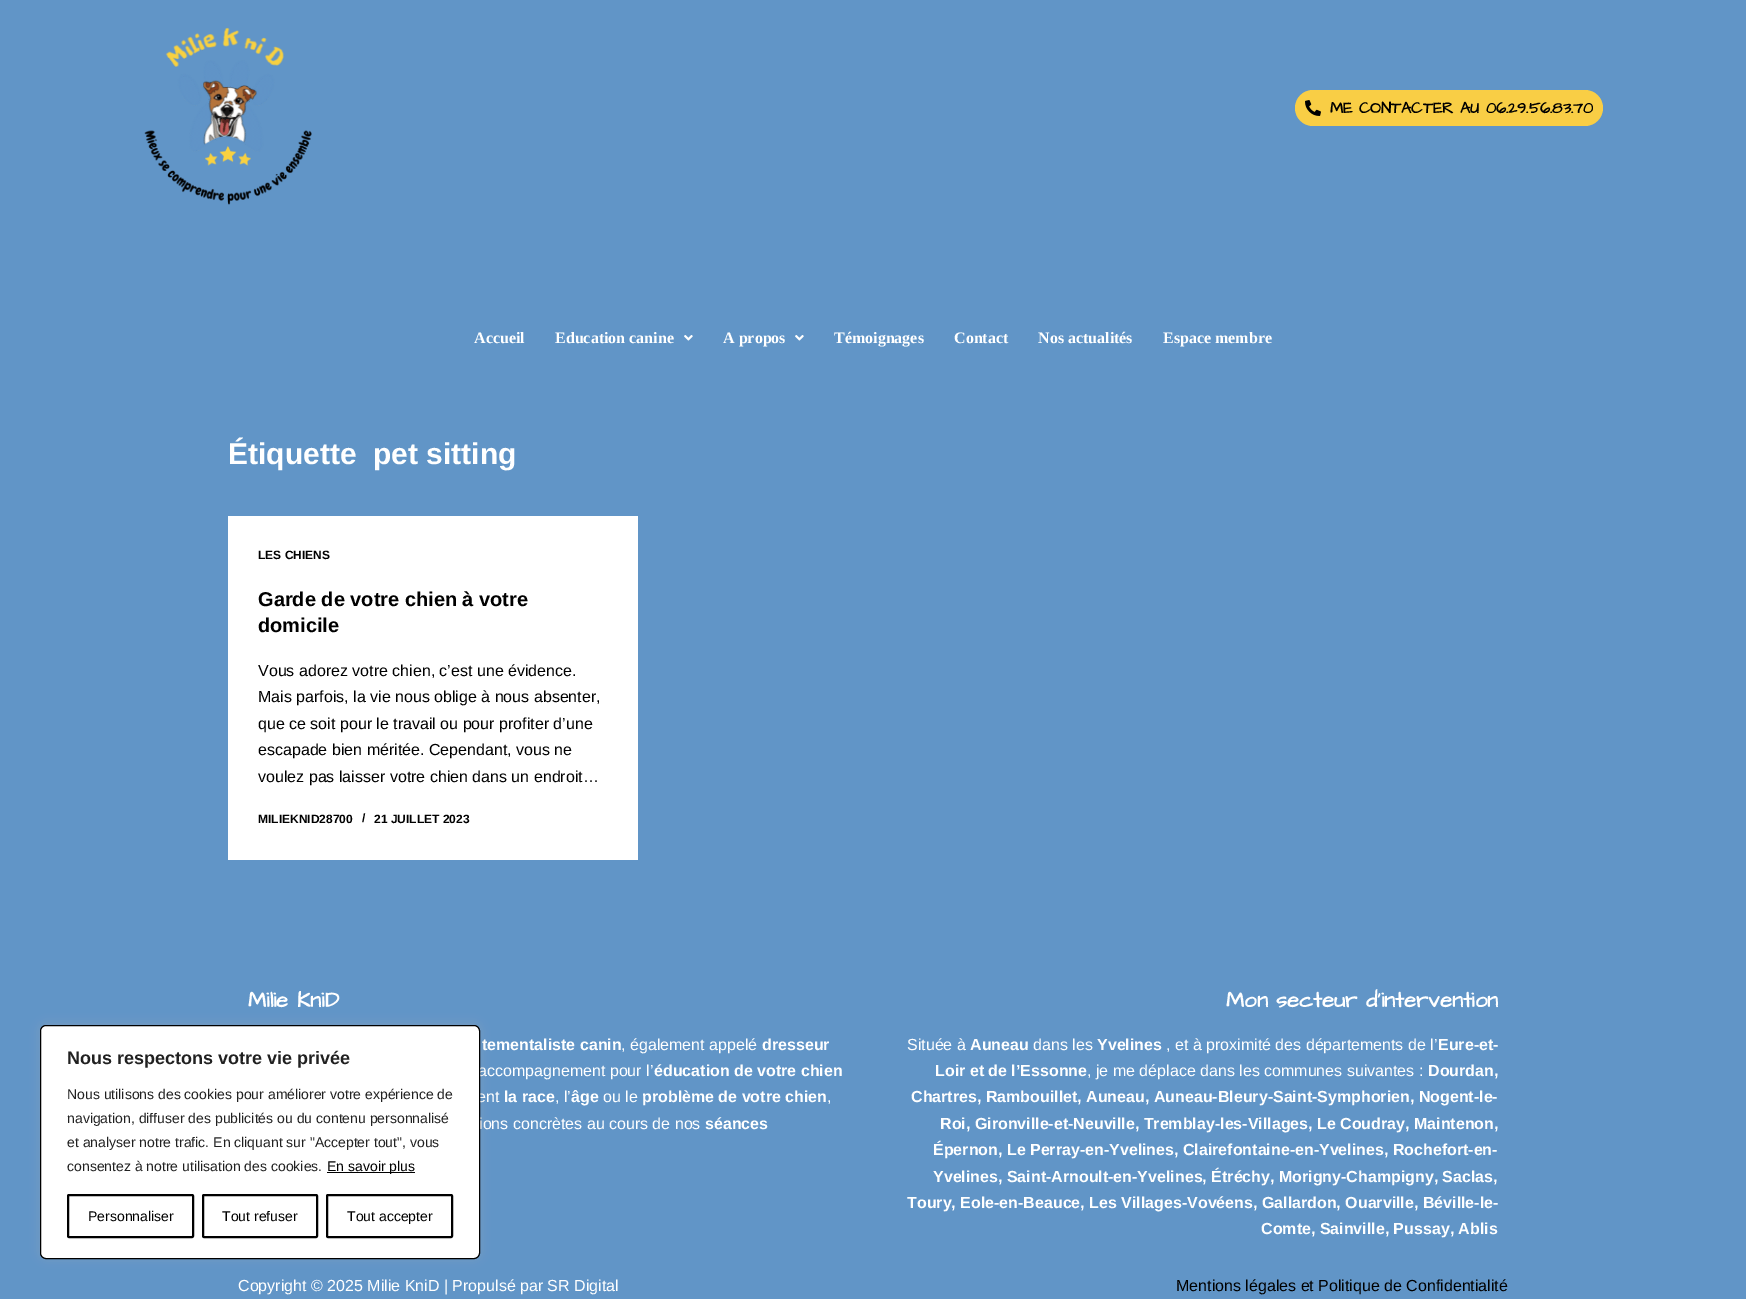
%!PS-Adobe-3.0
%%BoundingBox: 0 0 1746 1299
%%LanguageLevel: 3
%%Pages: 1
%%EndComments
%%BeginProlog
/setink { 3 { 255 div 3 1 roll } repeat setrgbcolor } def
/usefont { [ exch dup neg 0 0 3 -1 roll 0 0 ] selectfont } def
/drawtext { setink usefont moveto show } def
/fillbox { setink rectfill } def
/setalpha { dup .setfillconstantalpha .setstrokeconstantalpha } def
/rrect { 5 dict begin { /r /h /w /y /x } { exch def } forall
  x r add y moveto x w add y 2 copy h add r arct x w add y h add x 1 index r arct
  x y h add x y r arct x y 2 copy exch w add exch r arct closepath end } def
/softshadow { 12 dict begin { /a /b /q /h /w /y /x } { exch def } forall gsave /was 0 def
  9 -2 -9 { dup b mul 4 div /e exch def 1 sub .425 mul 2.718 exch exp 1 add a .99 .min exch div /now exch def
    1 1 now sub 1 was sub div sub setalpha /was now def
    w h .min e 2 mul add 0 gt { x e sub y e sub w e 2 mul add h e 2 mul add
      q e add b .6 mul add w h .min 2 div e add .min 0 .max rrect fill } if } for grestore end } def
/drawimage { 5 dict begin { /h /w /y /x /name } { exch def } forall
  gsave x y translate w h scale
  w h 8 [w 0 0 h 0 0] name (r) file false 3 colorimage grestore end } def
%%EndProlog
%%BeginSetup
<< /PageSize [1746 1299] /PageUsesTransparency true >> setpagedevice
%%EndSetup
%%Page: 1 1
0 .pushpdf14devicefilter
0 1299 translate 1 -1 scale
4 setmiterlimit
0 0 1746 1299 97 149 199 fillbox
(assets/img1.rgb) 144 27 168 178 drawimage
249 206 69 setink
1295 90 308 36 18 rrect fill
(assets/img2.rgb) 1305 100 16 16 drawimage
(ME CONTACTER AU 06.29.56.83.70) 1330 113 /ArchitectsDaughter-Bold 16 0 0 0 drawtext
(Accueil) 474 343 /LiberationSerif-Bold 16 255 255 255 drawtext
(Education canine) 555 343 /LiberationSerif-Bold 16 255 255 255 drawtext
(assets/img3.rgb) 684 335 9 6 drawimage
(A propos) 723 343 /LiberationSerif-Bold 16 255 255 255 drawtext
(assets/img3.rgb) 795 335 9 6 drawimage
(Témoignages) 834 343 /LiberationSerif-Bold 16 255 255 255 drawtext
(Contact) 954 343 /LiberationSerif-Bold 16 255 255 255 drawtext
(Nos actualités) 1038 343 /LiberationSerif-Bold 16 255 255 255 drawtext
(Espace membre) 1163 343 /LiberationSerif-Bold 16 255 255 255 drawtext
(Étiquette) 228 464 /LiberationSans-Bold 30 255 255 255 drawtext
(pet sitting) 373 464 /LiberationSans-Bold 30 255 255 255 drawtext
228 516 410 344 255 255 255 fillbox
(LES CHIENS) 258 559 /LiberationSans-Bold 12 0 0 0 drawtext
(Garde de votre chien à votre) 258 606 /LiberationSans-Bold 20 0 0 0 drawtext
(domicile) 258 632 /LiberationSans-Bold 20 0 0 0 drawtext
(Vous adorez votre chien, c’est une évidence.) 258 676 /LiberationSans-Regular 16 0 0 0 drawtext
(Mais parfois, la vie nous oblige à nous absenter,) 258 702 /LiberationSans-Regular 16 0 0 0 drawtext
(que ce soit pour le travail ou pour profiter d’une) 258 729 /LiberationSans-Regular 16 0 0 0 drawtext
(escapade bien méritée. Cependant, vous ne) 258 755 /LiberationSans-Regular 16 0 0 0 drawtext
(voulez pas laisser votre chien dans un endroit…) 258 782 /LiberationSans-Regular 16 0 0 0 drawtext
(MILIEKNID28700) 258 823 /LiberationSans-Bold 12 0 0 0 drawtext
(/) 362 822 /LiberationSans-Bold 12 0 0 0 drawtext
(21 JUILLET 2023) 374 823 /LiberationSans-Bold 12 0 0 0 drawtext
(Milie KniD) 248 1007 /ArchitectsDaughter-Bold 22 255 255 255 drawtext
(tementaliste canin) 482 1050 /LiberationSans-Bold 16 255 255 255 drawtext
(, également appelé) 621 1050 /LiberationSans-Regular 16 255 255 255 drawtext
(dresseur) 762 1050 /LiberationSans-Bold 16 255 255 255 drawtext
(accompagnement pour l’) 478 1076 /LiberationSans-Regular 16 255 255 255 drawtext
(éducation de votre chien) 654 1076 /LiberationSans-Bold 16 255 255 255 drawtext
(ent) 477 1102 /LiberationSans-Regular 16 255 255 255 drawtext
(la race) 504 1102 /LiberationSans-Bold 16 255 255 255 drawtext
(, l’) 555 1102 /LiberationSans-Regular 16 255 255 255 drawtext
(âge) 571 1102 /LiberationSans-Bold 16 255 255 255 drawtext
(ou le) 603 1102 /LiberationSans-Regular 16 255 255 255 drawtext
(problème de votre chien) 642 1102 /LiberationSans-Bold 16 255 255 255 drawtext
(,) 827 1102 /LiberationSans-Regular 16 255 255 255 drawtext
(ions concrètes au cours de nos) 479 1129 /LiberationSans-Regular 16 255 255 255 drawtext
(séances) 705 1129 /LiberationSans-Bold 16 255 255 255 drawtext
(Mon secteur d’intervention) 1226 1007 /ArchitectsDaughter-Bold 22 255 255 255 drawtext
(Située à) 907 1050 /LiberationSans-Regular 16 255 255 255 drawtext
(Auneau) 970 1050 /LiberationSans-Bold 16 255 255 255 drawtext
(dans les) 1033 1050 /LiberationSans-Regular 16 255 255 255 drawtext
(Yvelines) 1097 1050 /LiberationSans-Bold 16 255 255 255 drawtext
(, et à proximité des départements de l’) 1166 1050 /LiberationSans-Regular 16 255 255 255 drawtext
(Eure-et-) 1438 1050 /LiberationSans-Bold 16 255 255 255 drawtext
(Loir et de l’Essonne) 935 1076 /LiberationSans-Bold 16 255 255 255 drawtext
(, je me déplace dans les communes suivantes :) 1087 1076 /LiberationSans-Regular 16 255 255 255 drawtext
(Dourdan,) 1428 1076 /LiberationSans-Bold 16 255 255 255 drawtext
(Chartres, Rambouillet, Auneau, Auneau-Bleury-Saint-Symphorien, Nogent-le-) 911 1102 /LiberationSans-Bold 16 255 255 255 drawtext
(Roi, Gironville-et-Neuville, Tremblay-les-Villages, Le Coudray, Maintenon,) 940 1129 /LiberationSans-Bold 16 255 255 255 drawtext
(Épernon, Le Perray-en-Yvelines, Clairefontaine-en-Yvelines, Rochefort-en-) 933 1155 /LiberationSans-Bold 16 255 255 255 drawtext
(Yvelines, Saint-Arnoult-en-Yvelines, Étréchy, Morigny-Champigny, Saclas,) 933 1182 /LiberationSans-Bold 16 255 255 255 drawtext
(Toury, Eole-en-Beauce, Les Villages-Vovéens, Gallardon, Ouarville, Béville-le-) 907 1208 /LiberationSans-Bold 16 255 255 255 drawtext
(Comte, Sainville, Pussay, Ablis) 1261 1234 /LiberationSans-Bold 16 255 255 255 drawtext
(Copyright © 2025 Milie KniD | Propulsé par SR Digital) 238 1291 /LiberationSans-Regular 16 255 255 255 drawtext
(Mentions légales et Politique de Confidentialité) 1176 1291 /LiberationSans-Regular 16 0 0 0 drawtext
172 171 171 setink
40 1024 440 234 6 5 0.3 softshadow
255 255 255 setink
40.5 1025.5 439 233 5.5 rrect gsave fill grestore
0 0 0 setink
stroke
(Nous respectons votre vie privée) 67 1064 /LiberationSans-Bold 18 33 33 33 drawtext
(Nous utilisons des cookies pour améliorer votre expérience de) 67 1099 /LiberationSans-Regular 14 33 33 33 drawtext
(navigation, diffuser des publicités ou du contenu personnalisé) 67 1123 /LiberationSans-Regular 14 33 33 33 drawtext
(et analyser notre trafic. En cliquant sur "Accepter tout", vous) 67 1147 /LiberationSans-Regular 14 33 33 33 drawtext
(consentez à notre utilisation des cookies.) 67 1171 /LiberationSans-Regular 14 33 33 33 drawtext
327 1172 88 1 0 0 0 fillbox
(En savoir plus) 327 1171 /LiberationSans-Regular 14 0 0 0 drawtext
2 setlinewidth
68 1195 125 42 1 rrect stroke
(Personnaliser) 88 1221 /LiberationSans-Regular 14 0 0 0 drawtext
203 1195 114 42 1 rrect stroke
(Tout refuser) 222 1221 /LiberationSans-Regular 14 0 0 0 drawtext
327 1195 125 42 1 rrect stroke
(Tout accepter) 347 1221 /LiberationSans-Regular 14 0 0 0 drawtext
.poppdf14devicefilter showpage
%%EOF
